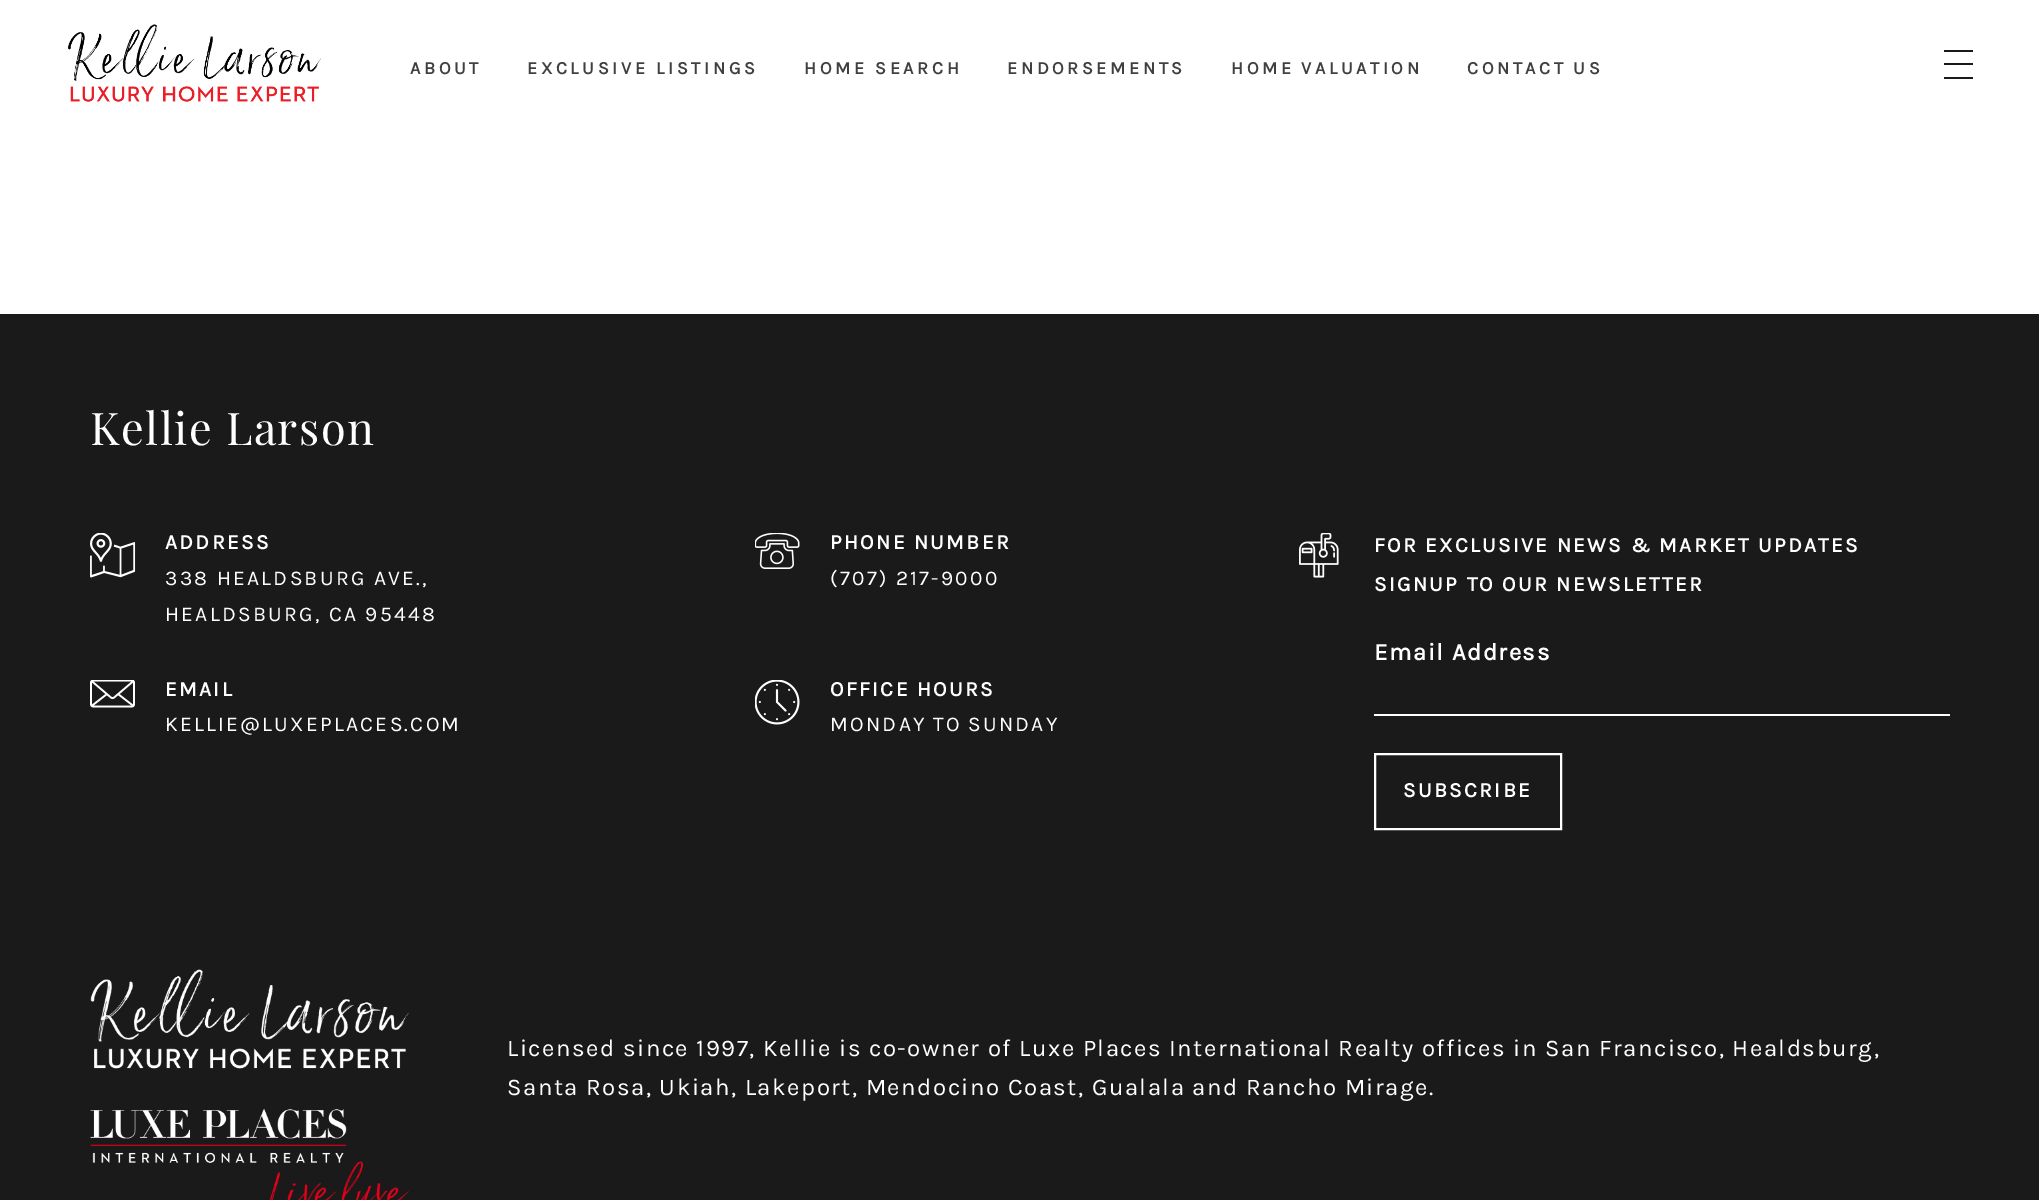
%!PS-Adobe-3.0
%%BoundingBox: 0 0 2039 1200
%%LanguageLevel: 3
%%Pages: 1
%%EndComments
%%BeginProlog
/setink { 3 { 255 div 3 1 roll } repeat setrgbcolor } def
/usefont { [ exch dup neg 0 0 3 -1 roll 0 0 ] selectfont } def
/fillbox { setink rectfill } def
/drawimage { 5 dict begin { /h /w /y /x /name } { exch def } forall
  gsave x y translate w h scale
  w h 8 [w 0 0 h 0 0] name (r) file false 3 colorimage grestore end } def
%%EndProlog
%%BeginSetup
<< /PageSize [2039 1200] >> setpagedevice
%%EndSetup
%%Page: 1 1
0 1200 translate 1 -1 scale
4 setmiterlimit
0 0 2039 1200 255 255 255 fillbox
(assets/img1.rgb) 68 24 253 78 drawimage
/Karla-Bold 18 usefont
64 64 64 setink
410 74 moveto 3.6 0 (ABOUT) ashow
527 74 moveto 3.6 0 (EXCLUSIVE LISTINGS) ashow
804 74 moveto 3.6 0 (HOME SEARCH) ashow
1007 74 moveto 3.6 0 (ENDORSEMENTS) ashow
1231 74 moveto -1 0 32 3.6 0 (HOME VALUATION) awidthshow
1467 74 moveto -1 0 32 3.6 0 (CONTACT US) awidthshow
1944 50 29 2 26 26 26 fillbox
1944 63 29 2 26 26 26 fillbox
1944 77 29 2 26 26 26 fillbox
0 314 2039 886 26 26 26 fillbox
/PlayfairDisplay-Regular 45 usefont
255 255 255 setink
90 445 moveto 1.5 0 (Kellie Larson) ashow
(assets/img2.rgb) 90 533 46 45 drawimage
/Karla-Bold 21 usefont
165 549 moveto 2.25 0 (ADDRESS) ashow
/Karla-Regular 21 usefont
165 585 moveto 2.25 0 (338 HEALDSBURG AVE.,) ashow
165 621 moveto 2.25 0 (HEALDSBURG, CA 95448) ashow
(assets/img3.rgb) 755 533 45 36 drawimage
/Karla-Bold 21 usefont
830 549 moveto 2.25 0 (PHONE NUMBER) ashow
/Karla-Regular 21 usefont
830 585 moveto 2.25 0 (\(707\) 217-9000) ashow
(assets/img4.rgb) 90 680 45 28 drawimage
/Karla-Bold 21 usefont
165 696 moveto 2.25 0 (EMAIL) ashow
/Karla-Regular 21 usefont
165 731 moveto 2.25 0 (KELLIE@LUXEPLACES.COM) ashow
(assets/img5.rgb) 755 680 45 45 drawimage
/Karla-Bold 21 usefont
830 696 moveto 2.25 0 (OFFICE HOURS) ashow
/Karla-Regular 21 usefont
830 731 moveto -1 0 32 2.25 0 (MONDAY TO SUNDAY) awidthshow
(assets/img6.rgb) 1299 533 40 45 drawimage
/Karla-Bold 21 usefont
1374 552 moveto 2.25 0 (FOR EXCLUSIVE NEWS & MARKET UPDATES) ashow
1374 591 moveto 2.25 0 (SIGNUP TO OUR NEWSLETTER) ashow
/Karla-Bold 24 usefont
1374 660 moveto 1.5 0 (Email Address) ashow
1374 714 576 2 255 255 255 fillbox
2 setlinewidth
1375 754 186 75 rectstroke
/Karla-Bold 21 usefont
1403 797 moveto 2.25 0 (SUBSCRIBE) ashow
(assets/img7.rgb) 90 969 319 100 drawimage
(assets/img8.rgb) 90 1108 319 92 drawimage
/Karla-Regular 24 usefont
507 1056 moveto -0.1 0 32 1.5 0 (Licensed since 1997, Kellie is co-owner of Luxe Places International Realty offices in San Francisco, Healdsburg,) awidthshow
507 1095 moveto 1.5 0 (Santa Rosa, Ukiah, Lakeport, Mendocino Coast, Gualala and Rancho Mirage.) ashow
showpage
%%EOF
